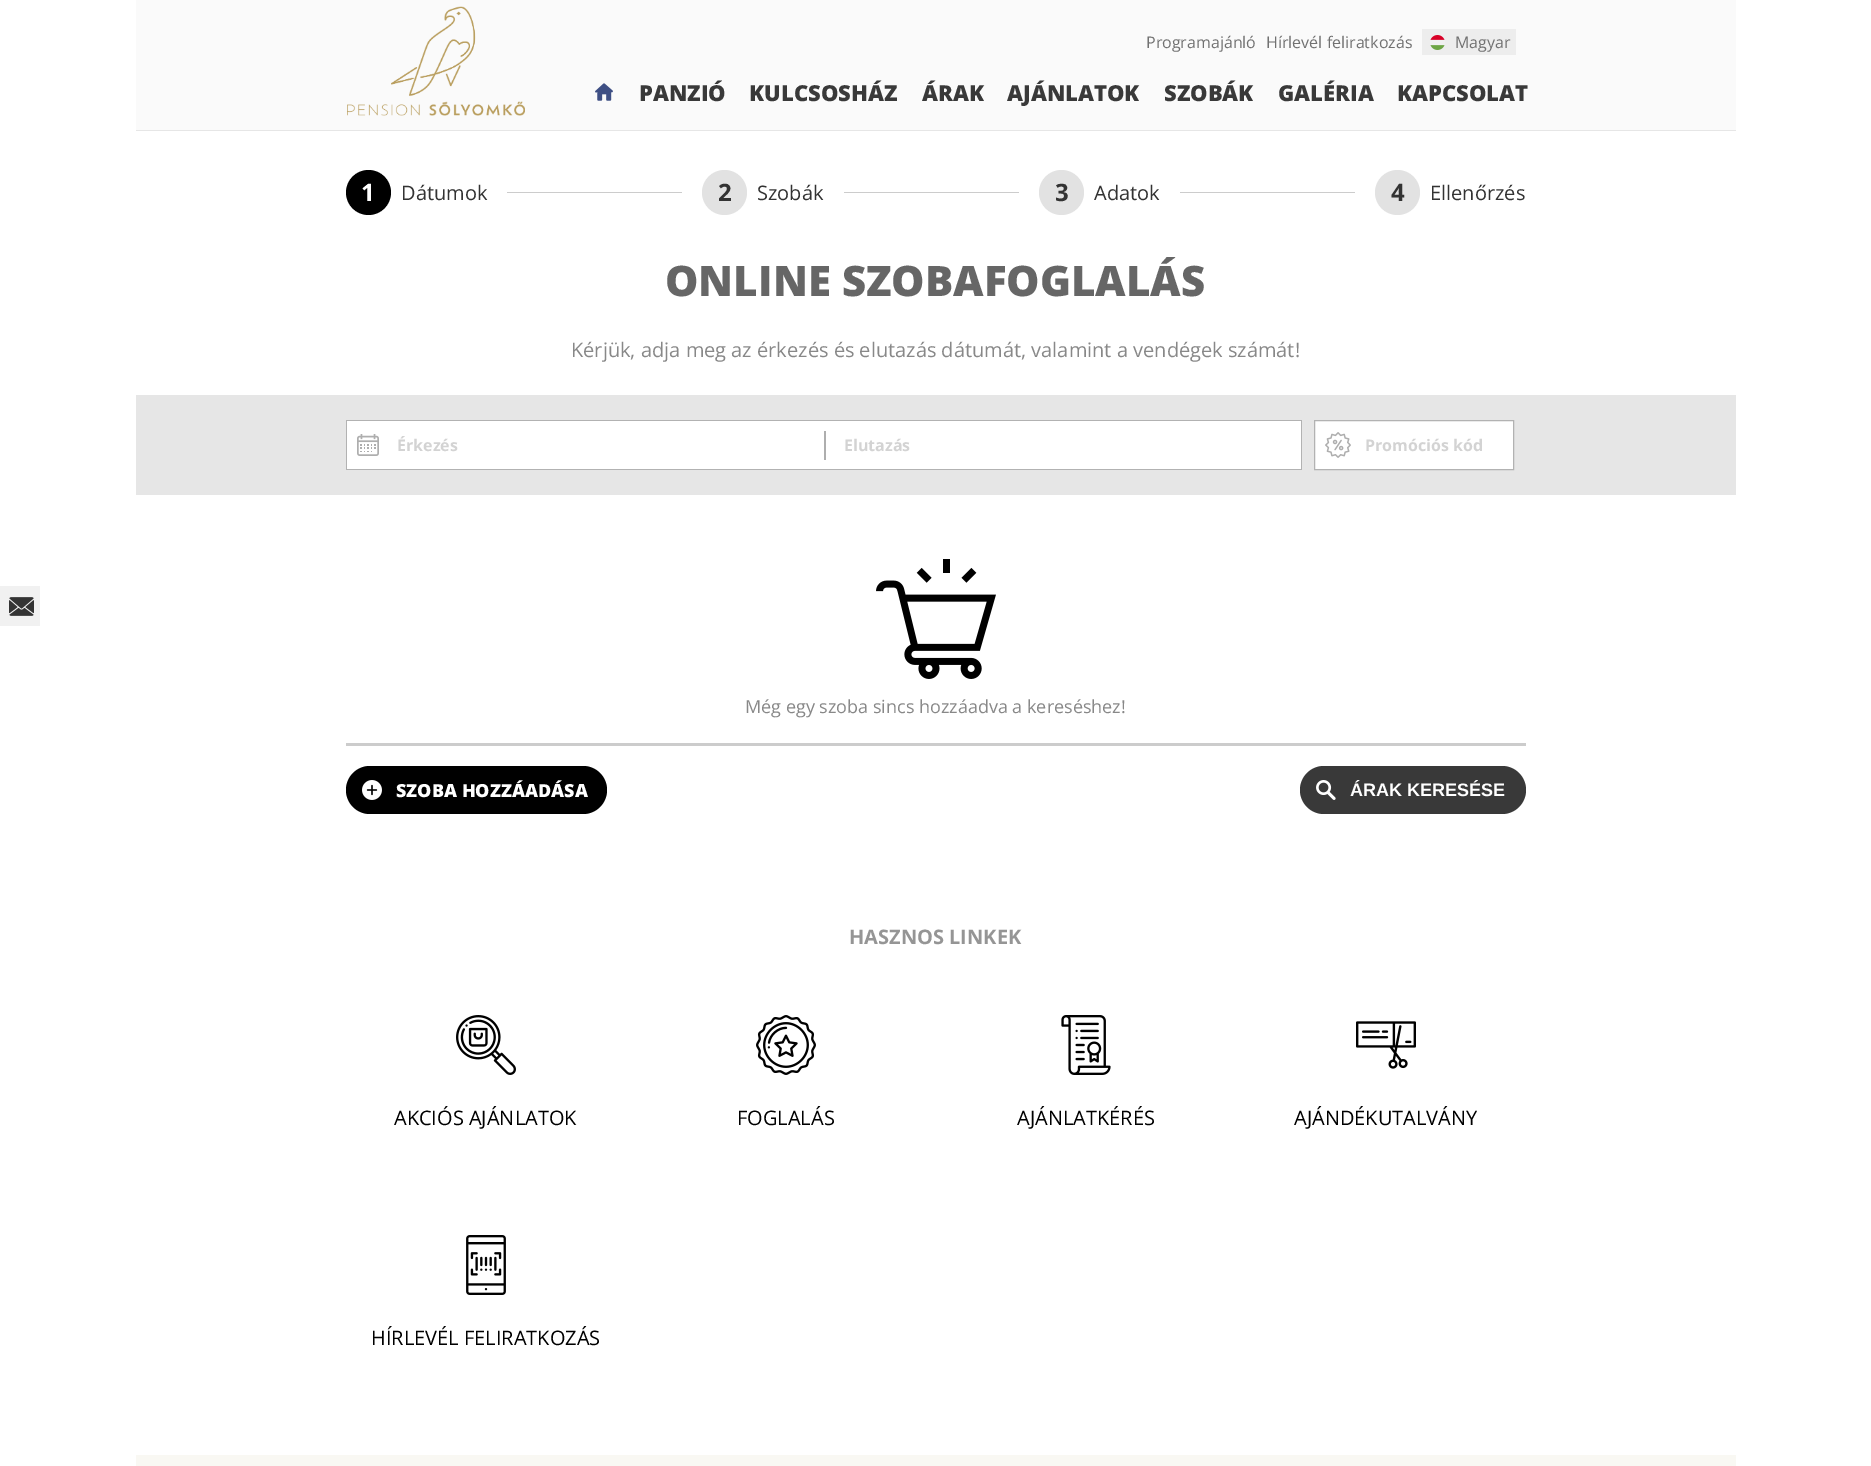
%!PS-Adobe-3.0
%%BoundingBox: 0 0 1871 1466
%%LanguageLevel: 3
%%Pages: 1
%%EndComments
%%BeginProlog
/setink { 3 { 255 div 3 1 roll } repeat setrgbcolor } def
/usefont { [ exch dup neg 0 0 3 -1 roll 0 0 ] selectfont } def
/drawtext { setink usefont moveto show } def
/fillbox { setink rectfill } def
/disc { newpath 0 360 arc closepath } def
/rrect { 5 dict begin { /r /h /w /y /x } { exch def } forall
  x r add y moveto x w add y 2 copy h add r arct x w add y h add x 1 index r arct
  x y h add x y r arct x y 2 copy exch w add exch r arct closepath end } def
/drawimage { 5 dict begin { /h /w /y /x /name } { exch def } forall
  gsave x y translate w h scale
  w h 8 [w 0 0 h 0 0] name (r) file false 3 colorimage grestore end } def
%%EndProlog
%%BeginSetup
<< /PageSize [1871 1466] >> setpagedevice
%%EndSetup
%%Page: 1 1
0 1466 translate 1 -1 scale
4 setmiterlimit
0 0 1871 1466 255 255 255 fillbox
136 0 1600 130 250 250 250 fillbox
136 130 1600 1 230 230 230 fillbox
(assets/img1.rgb) 347 6 178 110 drawimage
(Programajánló) 1146 48 /OpenSans-Regular 16 113 113 113 drawtext
(Hírlevél feliratkozás) 1266 48 /OpenSans-Regular 16 113 113 113 drawtext
1422 29 94 26 237 237 237 fillbox
(assets/img2.rgb) 1430 35 15 15 drawimage
(Magyar) 1455 48 /OpenSans-Regular 16 113 113 113 drawtext
(assets/img3.rgb) 595 83 18 18 drawimage
(PANZIÓ) 639 101 /OpenSans-ExtraBold 22 57 57 57 drawtext
(KULCSOSHÁZ) 749 101 /OpenSans-ExtraBold 22 57 57 57 drawtext
(ÁRAK) 922 101 /OpenSans-ExtraBold 22 57 57 57 drawtext
(AJÁNLATOK) 1007 101 /OpenSans-ExtraBold 22 57 57 57 drawtext
(SZOBÁK) 1164 101 /OpenSans-ExtraBold 22 57 57 57 drawtext
(GALÉRIA) 1278 101 /OpenSans-ExtraBold 22 57 57 57 drawtext
(KAPCSOLAT) 1397 101 /OpenSans-ExtraBold 22 57 57 57 drawtext
0 0 0 setink
368.5 192.5 22.5 disc fill
(1) 361 201 /OpenSans-Bold 24 255 255 255 drawtext
(Dátumok) 401 200 /OpenSans-Regular 20 51 51 51 drawtext
507 192 175 1 204 204 204 fillbox
226 226 226 setink
724.5 192.5 22.5 disc fill
(2) 718 201 /OpenSans-Bold 24 51 51 51 drawtext
(Szobák) 757 200 /OpenSans-Regular 20 51 51 51 drawtext
844 192 175 1 204 204 204 fillbox
226 226 226 setink
1061.5 192.5 22.5 disc fill
(3) 1055 201 /OpenSans-Bold 24 51 51 51 drawtext
(Adatok) 1094 200 /OpenSans-Regular 20 51 51 51 drawtext
1180 192 175 1 204 204 204 fillbox
226 226 226 setink
1397.5 192.5 22.5 disc fill
(4) 1391 201 /OpenSans-Bold 24 51 51 51 drawtext
(Ellenőrzés) 1430 200 /OpenSans-Regular 20 51 51 51 drawtext
0 586 40 40 241 241 241 fillbox
(assets/img4.rgb) 9 597 25 19 drawimage
(ONLINE SZOBAFOGLALÁS) 665 296 /OpenSans-ExtraBold 42 102 102 102 drawtext
(Kérjük, adja meg az érkezés és elutazás dátumát, valamint a vendégek számát!) 571 357 /OpenSans-Regular 20 136 136 136 drawtext
136 395 1600 100 230 230 230 fillbox
347 421 954 48 255 255 255 fillbox
(assets/img5.rgb) 357 434 22 22 drawimage
346 420 956 1 178 178 178 fillbox
346 469 478 1 178 178 178 fillbox
346 420 1 50 178 178 178 fillbox
(Érkezés) 397 451 /OpenSans-Bold 16 211 211 211 drawtext
824 431 2 29 174 174 174 fillbox
1301 420 1 50 178 178 178 fillbox
824 469 478 1 178 178 178 fillbox
(Elutazás) 844 451 /OpenSans-Bold 16 211 211 211 drawtext
1315 421 198 48 255 255 255 fillbox
(assets/img6.rgb) 1325 432 26 26 drawimage
178 178 178 setink
1314.5 420.5 199 49 rectstroke
(Promóciós kód) 1365 451 /OpenSans-Bold 16 211 211 211 drawtext
(assets/img7.rgb) 876 559 120 120 drawimage
(Még egy szoba sincs hozzáadva a kereséshez!) 745 713 /OpenSans-Regular 18 136 136 136 drawtext
346 743 1180 3 204 204 204 fillbox
0 0 0 setink
346 766 261 48 24 rrect fill
(assets/img8.rgb) 362 780 20 20 drawimage
(SZOBA HOZZÁADÁSA) 396 797 /OpenSans-ExtraBold 18 255 255 255 drawtext
57 57 57 setink
1300 766 226 48 24 rrect fill
(assets/img9.rgb) 1316 780 20 20 drawimage
(ÁRAK KERESÉSE) 1350 796 /LiberationSans-Bold 18 255 255 255 drawtext
(HASZNOS LINKEK) 849 944 /OpenSans-Bold 20 149 149 149 drawtext
(assets/img10.rgb) 456 1015 60 60 drawimage
(AKCIÓS AJÁNLATOK) 394 1125 /OpenSans-Regular 20 0 0 0 drawtext
(assets/img11.rgb) 756 1015 60 60 drawimage
(FOGLALÁS) 737 1125 /OpenSans-Regular 20 0 0 0 drawtext
(assets/img12.rgb) 1061 1015 50 60 drawimage
(AJÁNLATKÉRÉS) 1017 1125 /OpenSans-Regular 20 0 0 0 drawtext
(assets/img13.rgb) 1356 1021 60 48 drawimage
(AJÁNDÉKUTALVÁNY) 1294 1125 /OpenSans-Regular 20 0 0 0 drawtext
(assets/img14.rgb) 466 1235 40 60 drawimage
(HÍRLEVÉL FELIRATKOZÁS) 371 1345 /OpenSans-Regular 20 0 0 0 drawtext
136 1455 1600 11 249 248 243 fillbox
showpage
%%EOF
